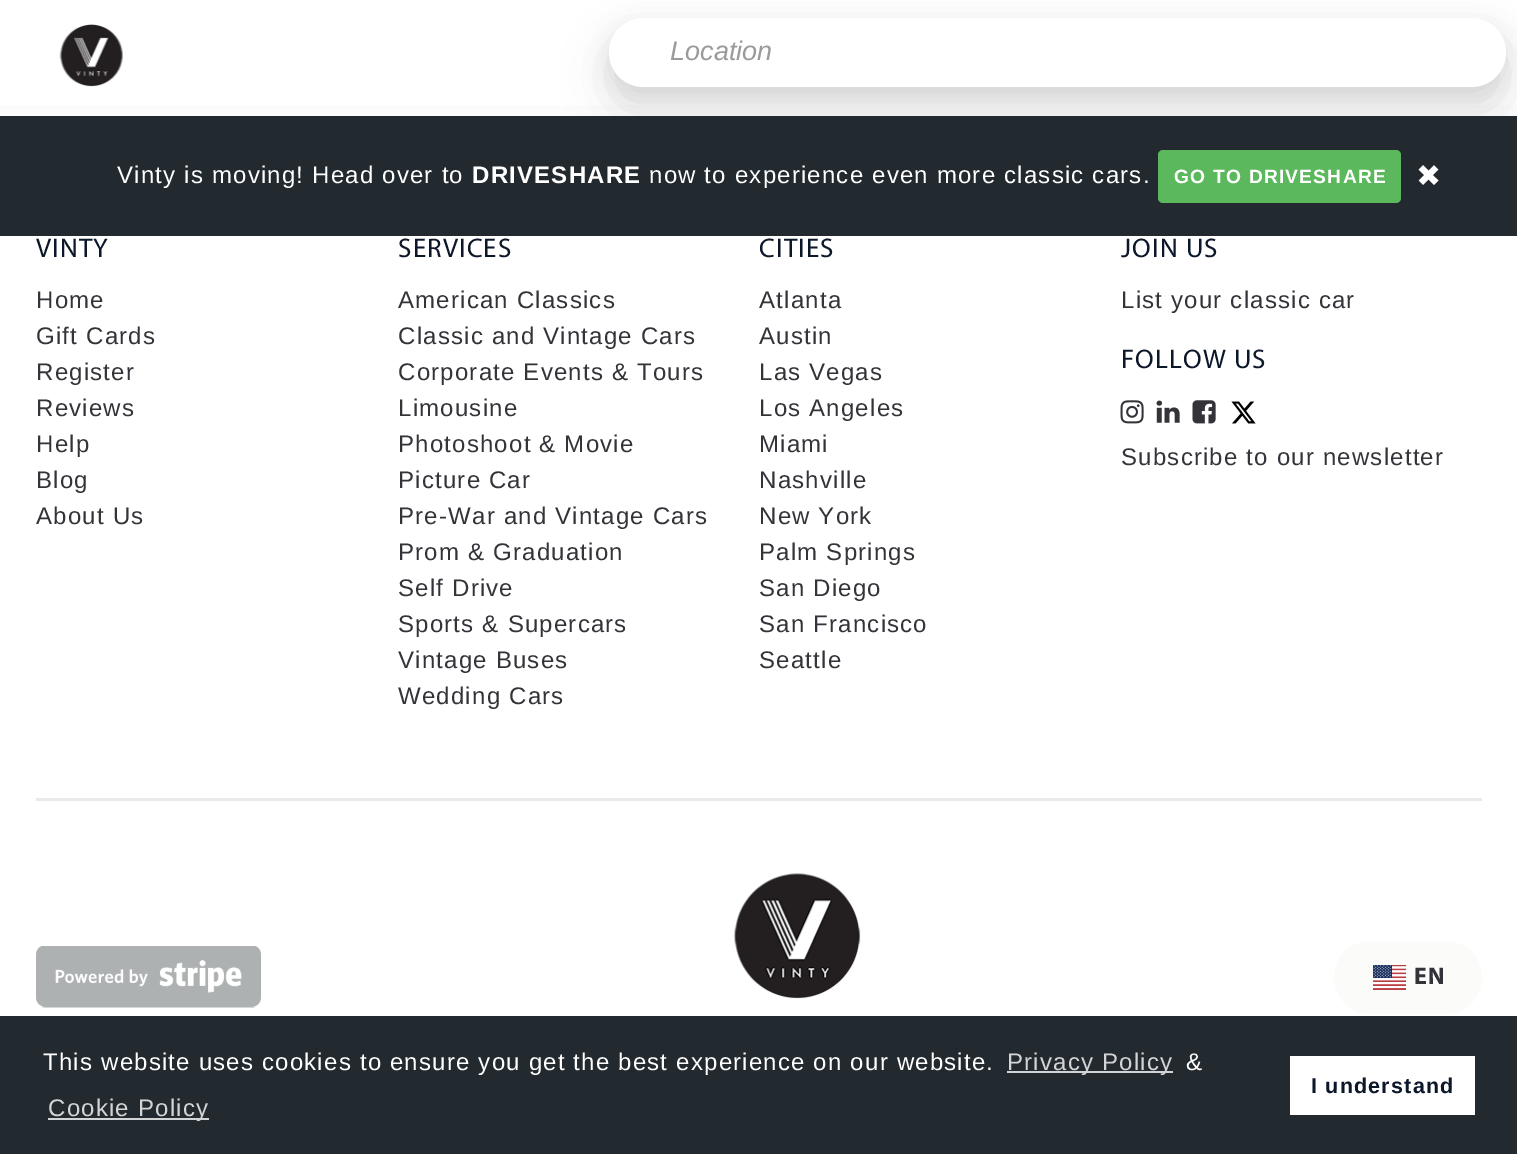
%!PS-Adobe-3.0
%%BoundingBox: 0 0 1517 1154
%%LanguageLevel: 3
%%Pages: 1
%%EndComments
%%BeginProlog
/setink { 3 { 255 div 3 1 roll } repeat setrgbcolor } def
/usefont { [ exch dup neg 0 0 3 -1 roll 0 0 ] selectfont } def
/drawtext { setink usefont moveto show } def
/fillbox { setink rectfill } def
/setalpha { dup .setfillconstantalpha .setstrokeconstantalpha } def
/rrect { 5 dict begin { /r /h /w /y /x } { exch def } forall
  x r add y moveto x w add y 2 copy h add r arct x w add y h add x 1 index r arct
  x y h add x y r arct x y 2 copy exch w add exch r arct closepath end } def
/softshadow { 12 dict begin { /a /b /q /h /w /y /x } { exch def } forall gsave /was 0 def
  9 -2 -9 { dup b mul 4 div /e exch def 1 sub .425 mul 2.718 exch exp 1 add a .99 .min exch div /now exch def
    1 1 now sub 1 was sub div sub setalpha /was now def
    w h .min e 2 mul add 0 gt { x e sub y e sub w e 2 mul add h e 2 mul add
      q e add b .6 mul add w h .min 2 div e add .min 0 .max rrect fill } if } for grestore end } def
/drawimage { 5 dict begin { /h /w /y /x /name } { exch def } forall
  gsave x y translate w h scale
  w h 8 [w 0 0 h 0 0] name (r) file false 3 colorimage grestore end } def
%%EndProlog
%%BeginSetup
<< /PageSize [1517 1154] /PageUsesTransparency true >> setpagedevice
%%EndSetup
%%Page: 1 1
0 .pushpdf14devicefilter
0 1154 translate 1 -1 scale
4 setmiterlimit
0 0 1517 1154 255 255 255 fillbox
(assets/img1.rgb) 59 24 64 63 drawimage
0 105 1517 11 252 252 252 fillbox
0 0 0 setink
609 26 897 69 34.5 11 0.08 softshadow
609 41 897 69 34.5 22.5 0.11 softshadow
255 255 255 setink
609 18 897 69 34.5 rrect fill
(Location) 670 60 /LiberationSans-Italic 27 154 153 156 drawtext
0 116 1517 120 34 41 47 fillbox
/LiberationSans-Regular 24 usefont
255 255 255 setink
117 183 moveto 1.2 0 (Vinty is moving! Head over to) ashow
/LiberationSans-Bold 24 usefont
472 183 moveto 1.2 0 (DRIVESHARE) ashow
/LiberationSans-Regular 24 usefont
649 183 moveto 1.2 0 (now to experience even more classic cars.) ashow
92 184 92 setink
1158 150 243 53 5 rrect fill
/LiberationSans-Bold 19.25 usefont
255 255 255 setink
1174 183 moveto 1.2 0 (GO TO DRIVESHARE) ashow
/DejaVuSans-Regular 30 usefont
1416 186 moveto 1.2 0 (✖) ashow
36 798 1446 3 233 233 233 fillbox
/Myriad-Regular 27 usefont
12 23 41 setink
36 257 moveto 1.2 0 (VINTY) ashow
/LiberationSans-Regular 24 usefont
52 51 57 setink
36 308 moveto 1.2 0 (Home) ashow
36 344 moveto 1.2 0 (Gift Cards) ashow
36 380 moveto 1.2 0 (Register) ashow
36 416 moveto 1.2 0 (Reviews) ashow
36 452 moveto 1.2 0 (Help) ashow
36 488 moveto 1.2 0 (Blog) ashow
36 524 moveto 1.2 0 (About Us) ashow
/Myriad-Regular 27 usefont
12 23 41 setink
398 257 moveto 1.2 0 (SERVICES) ashow
/LiberationSans-Regular 24 usefont
52 51 57 setink
398 308 moveto 1.2 0 (American Classics) ashow
398 344 moveto 1.2 0 (Classic and Vintage Cars) ashow
398 380 moveto 1.2 0 (Corporate Events & Tours) ashow
398 416 moveto 1.2 0 (Limousine) ashow
398 452 moveto 1.2 0 (Photoshoot & Movie) ashow
398 488 moveto 1.2 0 (Picture Car) ashow
398 524 moveto 1.2 0 (Pre-War and Vintage Cars) ashow
398 560 moveto 1.2 0 (Prom & Graduation) ashow
398 596 moveto 1.2 0 (Self Drive) ashow
398 632 moveto 1.2 0 (Sports & Supercars) ashow
398 668 moveto 1.2 0 (Vintage Buses) ashow
398 704 moveto 1.2 0 (Wedding Cars) ashow
/Myriad-Regular 27 usefont
12 23 41 setink
759 257 moveto 1.2 0 (CITIES) ashow
/LiberationSans-Regular 24 usefont
52 51 57 setink
759 308 moveto 1.2 0 (Atlanta) ashow
759 344 moveto 1.2 0 (Austin) ashow
759 380 moveto 1.2 0 (Las Vegas) ashow
759 416 moveto 1.2 0 (Los Angeles) ashow
759 452 moveto 1.2 0 (Miami) ashow
759 488 moveto 1.2 0 (Nashville) ashow
759 524 moveto 1.2 0 (New York) ashow
759 560 moveto 1.2 0 (Palm Springs) ashow
759 596 moveto 1.2 0 (San Diego) ashow
759 632 moveto 1.2 0 (San Francisco) ashow
759 668 moveto 1.2 0 (Seattle) ashow
/Myriad-Regular 27 usefont
12 23 41 setink
1121 257 moveto 1.2 0 (JOIN US) ashow
/LiberationSans-Regular 24 usefont
52 51 57 setink
1121 308 moveto 1.2 0 (List your classic car) ashow
/Myriad-Regular 27 usefont
12 23 41 setink
1121 368 moveto 1.2 0 (FOLLOW US) ashow
(assets/img2.rgb) 1120 400 24 24 drawimage
(assets/img3.rgb) 1156 400 24 23 drawimage
(assets/img4.rgb) 1192 400 24 24 drawimage
(assets/img5.rgb) 1231 401 25 23 drawimage
/LiberationSans-Regular 24 usefont
52 51 57 setink
1121 465 moveto 1.2 0 (Subscribe to our newsletter) ashow
(assets/img6.rgb) 36 946 225 62 drawimage
(assets/img7.rgb) 734 873 127 126 drawimage
251 251 250 setink
1334 941 148 73 36.5 rrect fill
(assets/img8.rgb) 1373 965 33 25 drawimage
/Myriad-Bold 24 usefont
52 51 57 setink
1414 984 moveto 1.2 0 (EN) ashow
0 1016 1517 138 34 41 47 fillbox
/LiberationSans-Regular 24 usefont
255 255 255 setink
43 1070 moveto 1.2 0 (This website uses cookies to ensure you get the best experience on our website.) ashow
1007 1071 166 2 211 212 213 fillbox
1007 1070 moveto 1.2 0 (Privacy Policy) ashow
255 255 255 setink
1186 1070 moveto 1.2 0 (&) ashow
48 1118 161 2 211 212 213 fillbox
48 1116 moveto 1.2 0 (Cookie Policy) ashow
1290 1056 185 59 255 255 255 fillbox
/LiberationSans-Bold 21.5 usefont
12 23 41 setink
1311 1093 moveto 1.2 0 (I understand) ashow
.poppdf14devicefilter showpage
%%EOF
